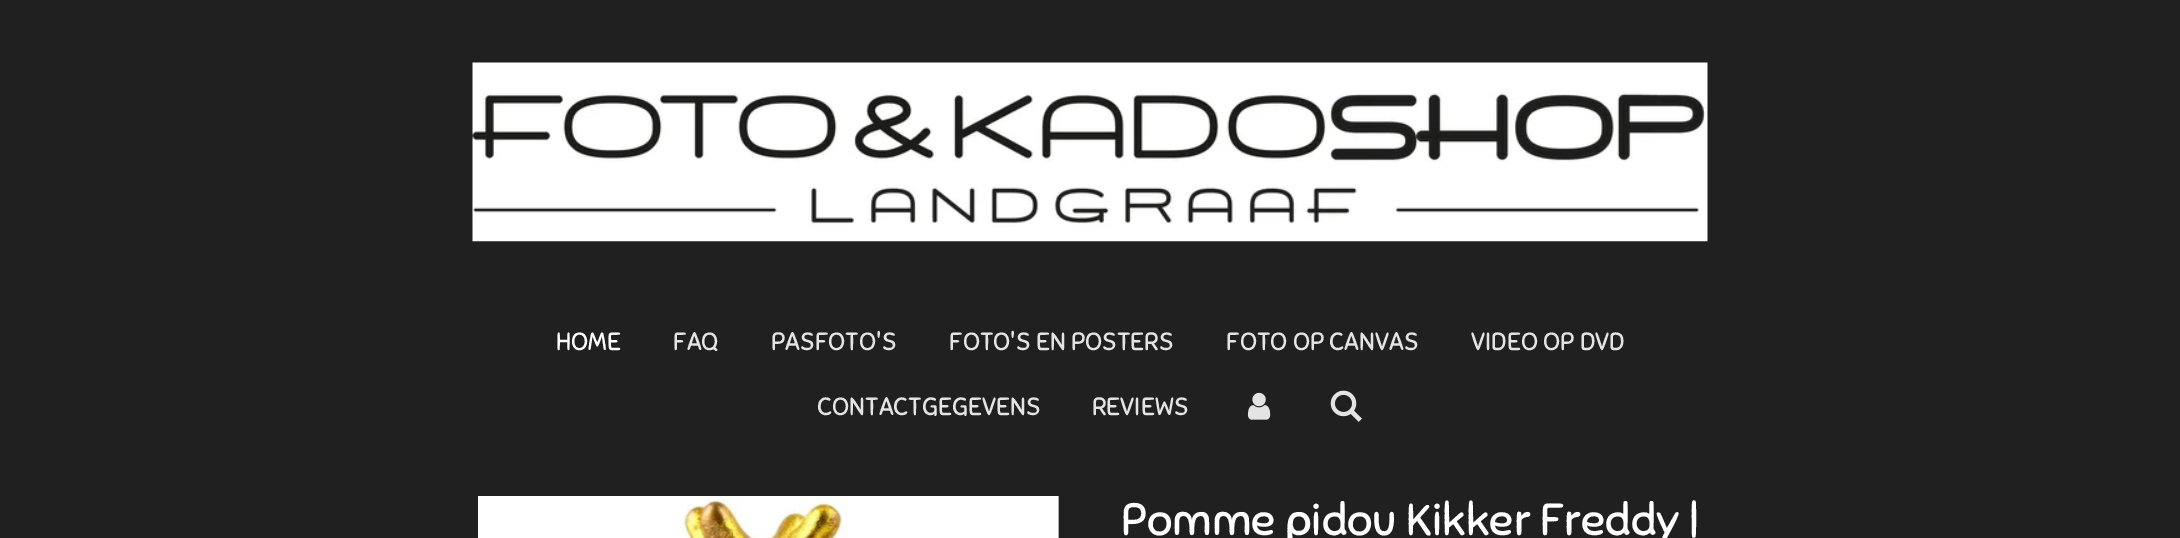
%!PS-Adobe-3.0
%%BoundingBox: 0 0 2180 538
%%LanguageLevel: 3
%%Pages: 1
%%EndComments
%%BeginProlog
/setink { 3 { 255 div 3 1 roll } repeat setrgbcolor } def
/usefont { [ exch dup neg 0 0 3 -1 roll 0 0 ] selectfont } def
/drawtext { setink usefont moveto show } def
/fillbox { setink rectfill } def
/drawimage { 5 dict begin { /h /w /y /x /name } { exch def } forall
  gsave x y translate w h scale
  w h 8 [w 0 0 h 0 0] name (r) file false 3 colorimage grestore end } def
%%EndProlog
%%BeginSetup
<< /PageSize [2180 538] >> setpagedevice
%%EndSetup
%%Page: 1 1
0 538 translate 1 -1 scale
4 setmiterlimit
0 0 2180 538 32 32 32 fillbox
(assets/img1.rgb) 472 62 1236 180 drawimage
(HOME) 556 350 /Sniglet-Regular 25 255 255 255 drawtext
(FAQ) 673 350 /Sniglet-Regular 25 228 228 228 drawtext
(PASFOTO'S) 771 350 /Sniglet-Regular 25 228 228 228 drawtext
(FOTO'S EN POSTERS) 949 350 /Sniglet-Regular 25 228 228 228 drawtext
(FOTO OP CANVAS) 1226 350 /Sniglet-Regular 25 228 228 228 drawtext
(VIDEO OP DVD) 1471 350 /Sniglet-Regular 25 228 228 228 drawtext
(CONTACTGEGEVENS) 817 415 /Sniglet-Regular 25 228 228 228 drawtext
(REVIEWS) 1092 415 /Sniglet-Regular 25 228 228 228 drawtext
(assets/img2.rgb) 1247 392 24 28 drawimage
(assets/img3.rgb) 1330 390 32 32 drawimage
(assets/img4.rgb) 478 496 581 42 drawimage
(Pomme pidou Kikker Freddy |) 1121 535 /Sniglet-Regular 45 255 255 255 drawtext
showpage
%%EOF
